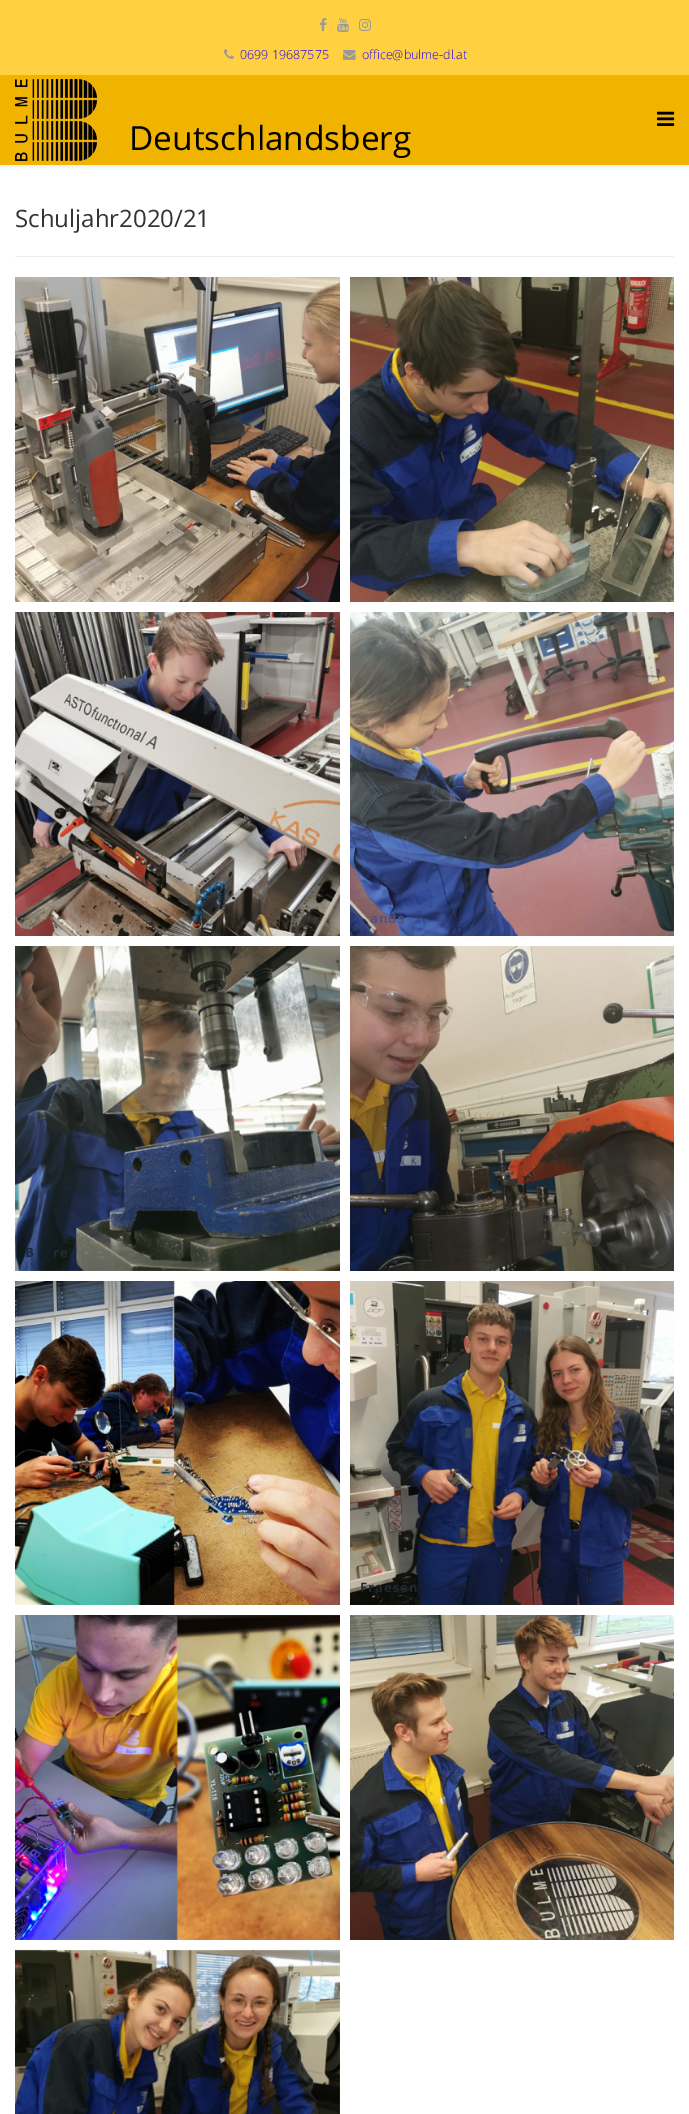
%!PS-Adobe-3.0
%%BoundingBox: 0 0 689 2114
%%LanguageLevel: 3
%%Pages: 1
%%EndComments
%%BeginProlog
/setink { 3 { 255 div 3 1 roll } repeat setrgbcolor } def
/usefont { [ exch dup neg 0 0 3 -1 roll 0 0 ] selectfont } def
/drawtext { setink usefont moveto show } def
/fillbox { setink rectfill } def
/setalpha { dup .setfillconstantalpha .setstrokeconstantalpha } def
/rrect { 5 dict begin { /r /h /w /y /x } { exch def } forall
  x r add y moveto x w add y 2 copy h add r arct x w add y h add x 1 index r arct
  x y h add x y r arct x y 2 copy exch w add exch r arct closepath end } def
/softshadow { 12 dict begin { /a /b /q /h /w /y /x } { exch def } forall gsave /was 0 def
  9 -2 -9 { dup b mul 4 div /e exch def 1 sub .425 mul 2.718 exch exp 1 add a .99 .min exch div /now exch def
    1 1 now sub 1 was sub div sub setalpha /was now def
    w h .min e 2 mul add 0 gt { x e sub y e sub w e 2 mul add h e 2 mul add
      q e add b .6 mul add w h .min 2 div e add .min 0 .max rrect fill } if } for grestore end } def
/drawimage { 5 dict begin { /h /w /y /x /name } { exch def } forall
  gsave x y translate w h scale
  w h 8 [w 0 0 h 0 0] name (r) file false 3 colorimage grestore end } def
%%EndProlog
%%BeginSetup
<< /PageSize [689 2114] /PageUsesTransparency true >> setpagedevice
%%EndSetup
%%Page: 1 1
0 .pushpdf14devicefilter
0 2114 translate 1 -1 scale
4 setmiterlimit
0 0 689 2114 255 255 255 fillbox
0 0 689 75 255 209 65 fillbox
(assets/img1.rgb) 319 18 8 13 drawimage
(assets/img2.rgb) 337 18 12 14 drawimage
(assets/img3.rgb) 359 19 12 12 drawimage
(assets/img4.rgb) 224 49 10 10 drawimage
(0699 19687575) 240 59 /OpenSans-Light 12.5 34 0 255 drawtext
(assets/img5.rgb) 343 50 13 10 drawimage
(office@bulme-dl.at) 362 59 /OpenSans-Light 12.5 34 0 255 drawtext
0 0 0 setink
0 78 689 90 0 1.5 0.05 softshadow
0 75 689 90 240 179 0 fillbox
(assets/img6.rgb) 15 79 396 82 drawimage
(assets/img7.rgb) 657 111 18 15 drawimage
15 256 659 1 238 238 238 fillbox
(Schuljahr2020/21) 15 227 /OpenSans-Regular 24 51 51 51 drawtext
(assets/img8.rgb) 15 277 325 325 drawimage
/OpenSans-Bold 13 usefont
198 185 167 setink
62 588 moveto 1 0 (s) ashow
118 588 moveto 1 0 (rg) ashow
(assets/img9.rgb) 350 277 324 325 drawimage
(assets/img10.rgb) 15 612 325 324 drawimage
(assets/img11.rgb) 350 612 324 324 drawimage
81 83 126 setink
370 923 moveto 1 0 (ands) ashow
(assets/img12.rgb) 15 946 325 325 drawimage
29 42 60 setink
25 1257 moveto 1 0 (B) ashow
53 1257 moveto 1 0 (re) ashow
(assets/img13.rgb) 350 946 324 325 drawimage
(assets/img14.rgb) 15 1281 325 324 drawimage
(assets/img15.rgb) 350 1281 324 324 drawimage
33 38 51 setink
360 1592 moveto 1 0 (Fraesen) ashow
(assets/img16.rgb) 15 1615 325 325 drawimage
(assets/img17.rgb) 350 1615 324 325 drawimage
(assets/img18.rgb) 15 1949 325 165 drawimage
.poppdf14devicefilter showpage
%%EOF
